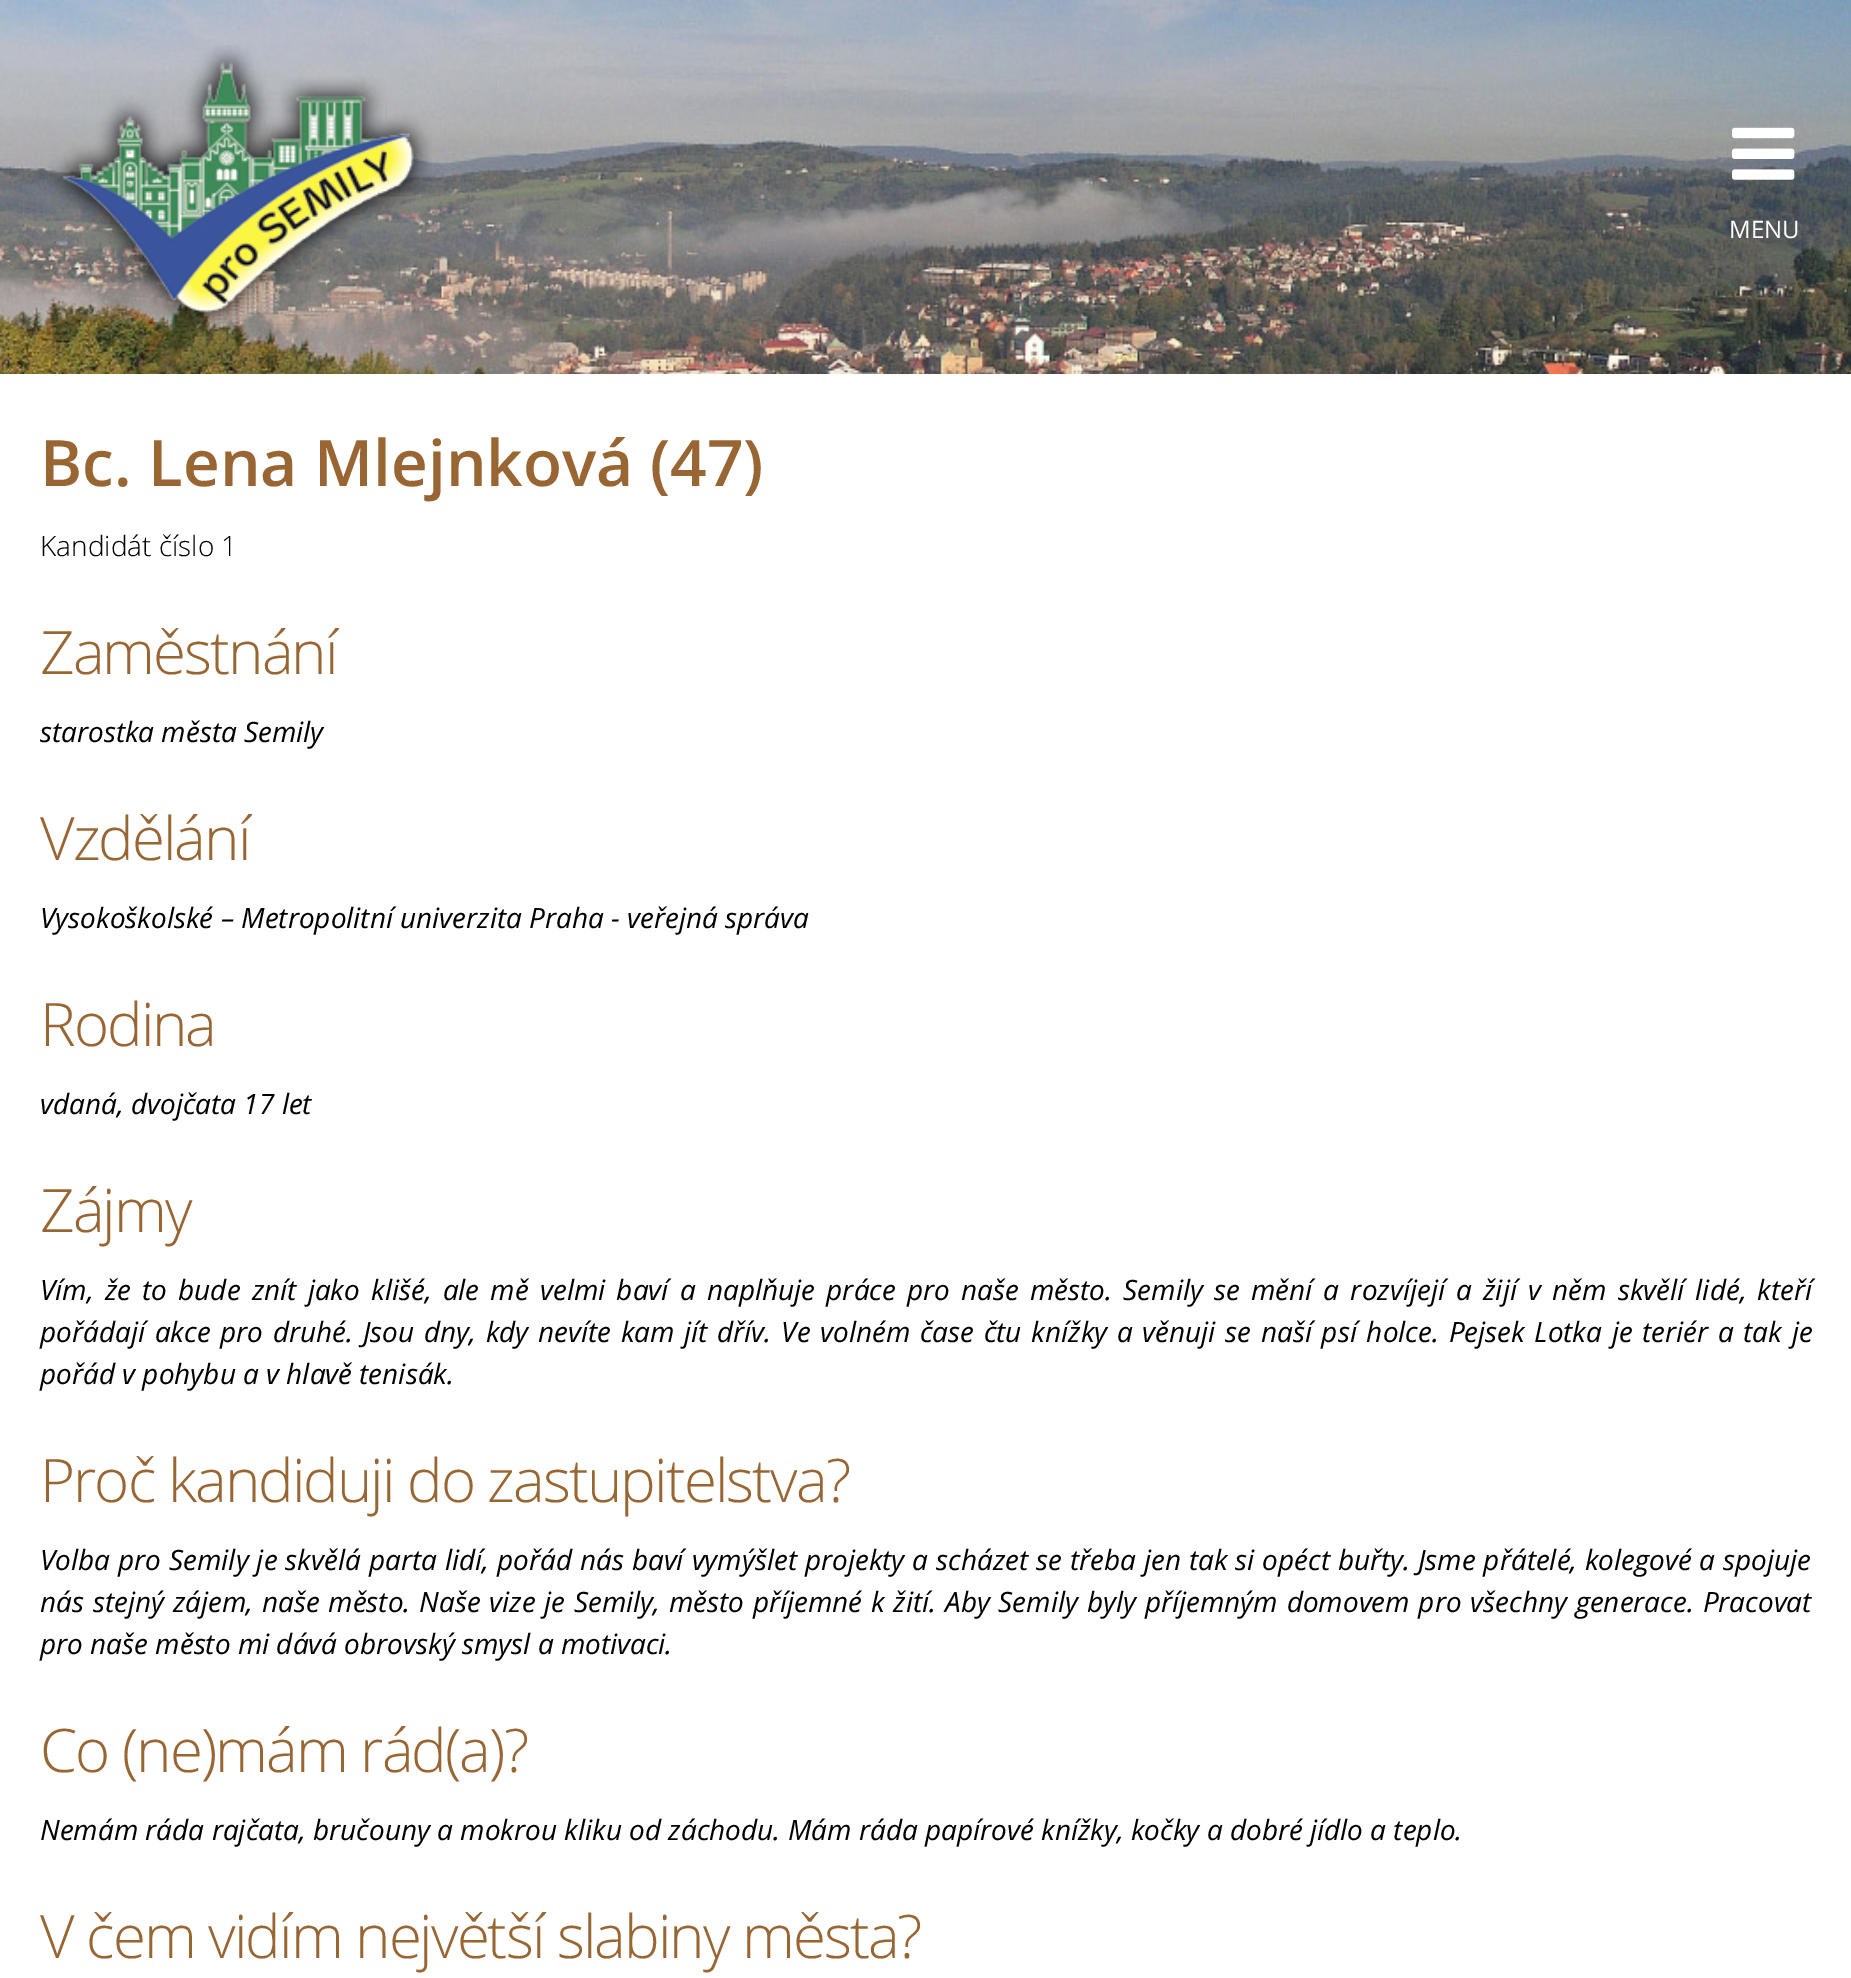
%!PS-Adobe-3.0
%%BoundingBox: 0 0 1851 1978
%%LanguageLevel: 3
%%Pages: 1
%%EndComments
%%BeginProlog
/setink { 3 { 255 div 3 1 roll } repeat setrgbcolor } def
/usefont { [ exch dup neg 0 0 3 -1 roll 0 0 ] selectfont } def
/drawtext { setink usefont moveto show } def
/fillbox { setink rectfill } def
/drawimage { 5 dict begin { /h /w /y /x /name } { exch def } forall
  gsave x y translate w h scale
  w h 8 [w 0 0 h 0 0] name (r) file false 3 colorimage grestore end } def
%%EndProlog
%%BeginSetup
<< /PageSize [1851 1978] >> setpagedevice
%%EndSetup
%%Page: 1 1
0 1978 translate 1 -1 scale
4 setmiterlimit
0 0 1851 1978 255 255 255 fillbox
(assets/img1.rgb) 0 0 1851 374 drawimage
(assets/img2.rgb) 49 45 383 285 drawimage
(assets/img3.rgb) 1732 127 63 53 drawimage
(MENU) 1729 238 /OpenSans-Regular 24 255 255 255 drawtext
(Bc. Lena Mlejnková \(47\)) 40 486 /OpenSans-SemiBold 64 153 102 51 drawtext
(Kandidát číslo 1) 40 556 /OpenSans-Light 28 0 0 0 drawtext
/OpenSans-Light 60 usefont
153 102 51 setink
40 674 moveto -2 0 (Zaměstnání) ashow
(starostka města Semily) 40 742 /OpenSans-Italic 28 0 0 0 drawtext
/OpenSans-Light 60 usefont
153 102 51 setink
40 860 moveto -2 0 (Vzdělání) ashow
(Vysokoškolské – Metropolitní univerzita Praha - veřejná správa) 40 928 /OpenSans-Italic 28 0 0 0 drawtext
/OpenSans-Light 60 usefont
153 102 51 setink
40 1046 moveto -2 0 (Rodina) ashow
(vdaná, dvojčata 17 let) 40 1114 /OpenSans-Italic 28 0 0 0 drawtext
/OpenSans-Light 60 usefont
153 102 51 setink
40 1232 moveto -2 0 (Zájmy) ashow
/OpenSans-Italic 28 usefont
0 0 0 setink
40 1300 moveto 3.9 0 32 (Vím, že to bude znít jako klišé, ale mě velmi baví a naplňuje práce pro naše město. Semily se mění a rozvíjejí a žijí v něm skvělí lidé, kteří) widthshow
40 1342 moveto 2.4 0 32 (pořádají akce pro druhé. Jsou dny, kdy nevíte kam jít dřív. Ve volném čase čtu knížky a věnuji se naší psí holce. Pejsek Lotka je teriér a tak je) widthshow
(pořád v pohybu a v hlavě tenisák.) 40 1384 /OpenSans-Italic 28 0 0 0 drawtext
/OpenSans-Light 60 usefont
153 102 51 setink
40 1502 moveto -2 0 (Proč kandiduji do zastupitelstva?) ashow
/OpenSans-Italic 28 usefont
0 0 0 setink
40 1570 moveto 0.7 0 32 (Volba pro Semily je skvělá parta lidí, pořád nás baví vymýšlet projekty a scházet se třeba jen tak si opéct buřty.) widthshow
1418 1570 moveto 0.5 0 32 (Jsme přátelé, kolegové a spojuje) widthshow
40 1612 moveto 1.5 0 32 (nás stejný zájem, naše město. Naše vize je Semily, město příjemné k žití. Aby Semily byly příjemným domovem pro všechny generace. Pracovat) widthshow
(pro naše město mi dává obrovský smysl a motivaci.) 40 1654 /OpenSans-Italic 28 0 0 0 drawtext
/OpenSans-Light 60 usefont
153 102 51 setink
40 1772 moveto -2 0 (Co \(ne\)mám rád\(a\)?) ashow
(Nemám ráda rajčata, bručouny a mokrou kliku od záchodu. Mám ráda papírové knížky, kočky a dobré jídlo a teplo.) 40 1840 /OpenSans-Italic 28 0 0 0 drawtext
/OpenSans-Light 60 usefont
153 102 51 setink
40 1958 moveto -2 0 (V čem vidím největší slabiny města?) ashow
showpage
%%EOF
